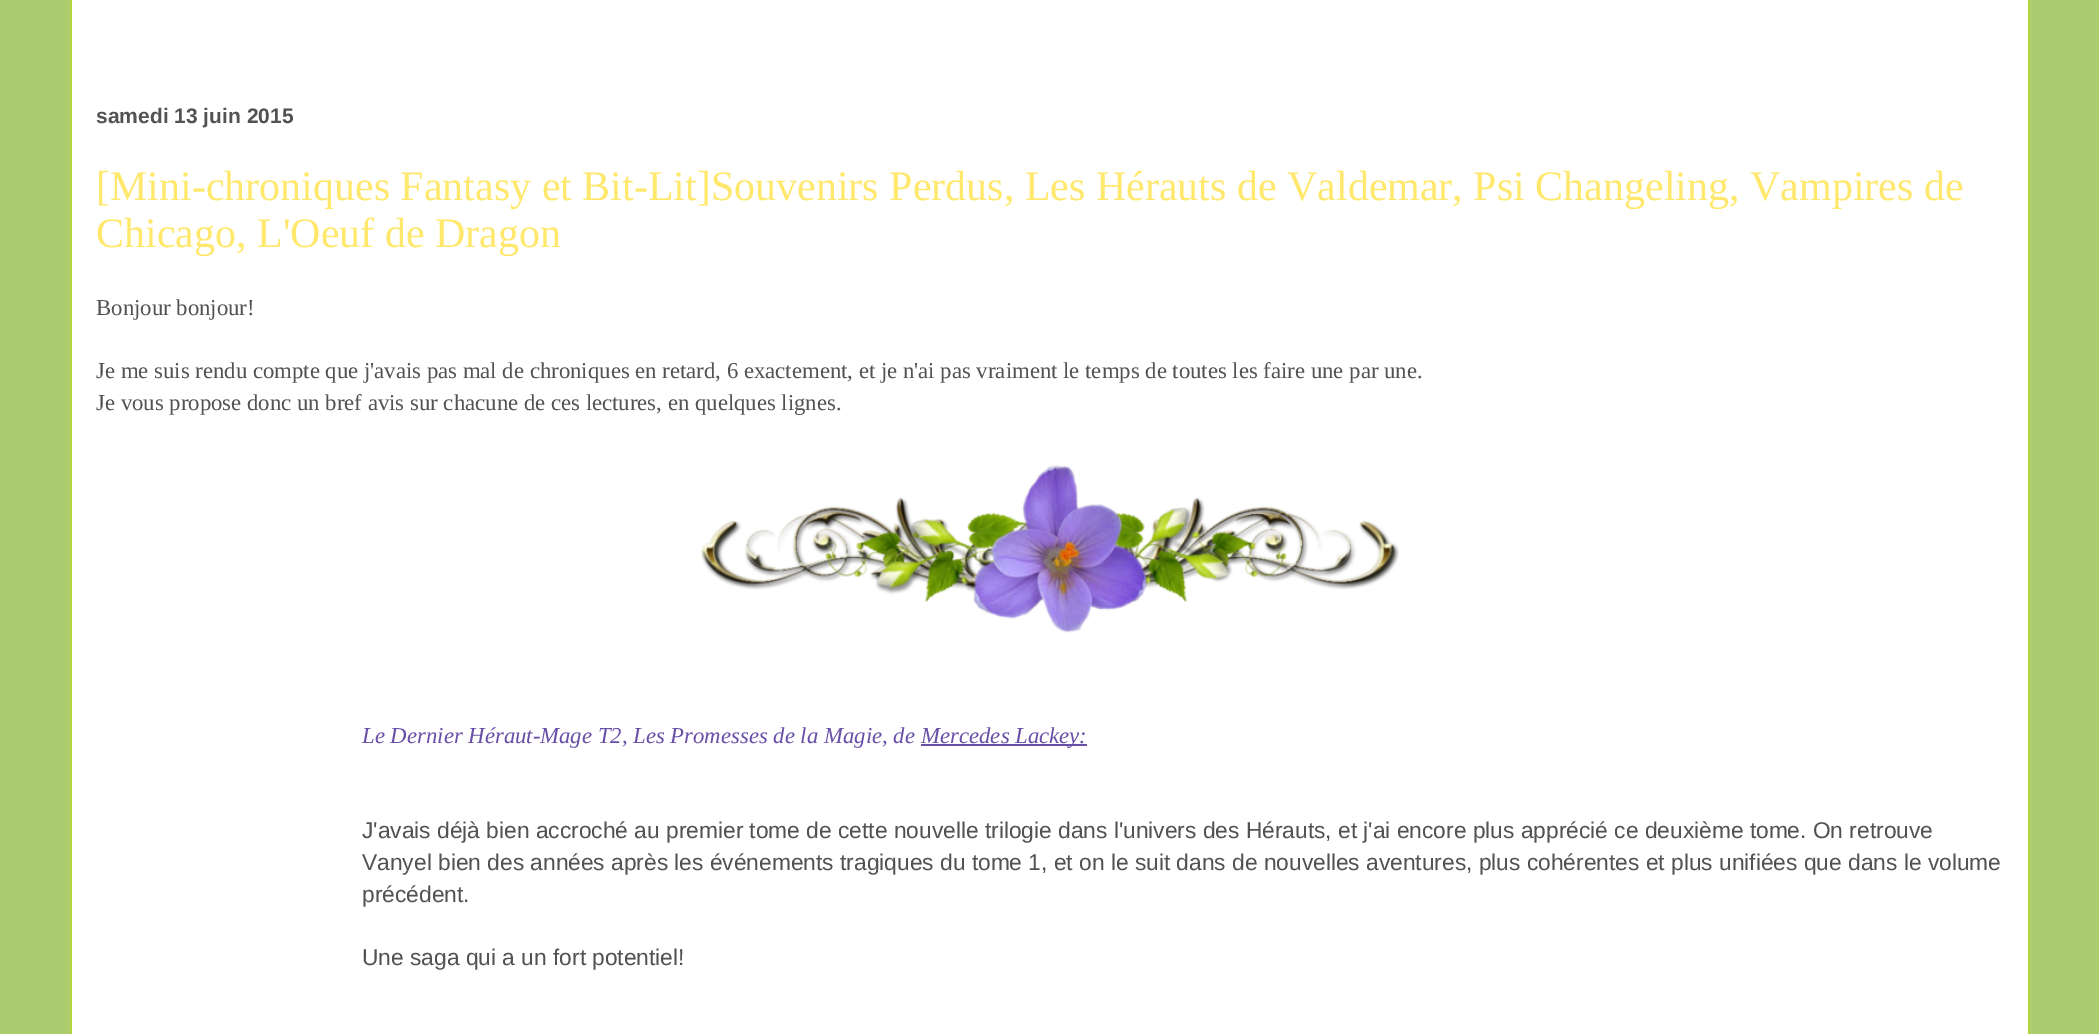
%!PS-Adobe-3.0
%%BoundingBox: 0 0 2099 1034
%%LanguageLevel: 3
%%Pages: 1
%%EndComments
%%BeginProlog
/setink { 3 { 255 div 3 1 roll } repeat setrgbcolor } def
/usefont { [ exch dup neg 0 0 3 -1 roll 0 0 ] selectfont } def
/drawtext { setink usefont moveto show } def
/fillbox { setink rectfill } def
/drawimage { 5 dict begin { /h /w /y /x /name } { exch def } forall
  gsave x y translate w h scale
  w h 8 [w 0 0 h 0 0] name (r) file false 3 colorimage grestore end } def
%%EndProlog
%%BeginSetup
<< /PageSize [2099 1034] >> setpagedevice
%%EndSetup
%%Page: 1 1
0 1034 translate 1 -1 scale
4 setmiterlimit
0 0 2099 1034 171 205 111 fillbox
72 0 1956 1034 255 255 255 fillbox
2028 0 2 1034 181 213 62 fillbox
70 0 2 1034 181 213 62 fillbox
(samedi 13 juin 2015) 96 123 /LiberationSans-Bold 21 82 82 82 drawtext
([Mini-chroniques Fantasy et Bit-Lit]Souvenirs Perdus, Les Hérauts de Valdemar, Psi Changeling, Vampires de) 96 200 /LiberationSerif-Regular 42 255 232 107 drawtext
(Chicago, L'Oeuf de Dragon) 96 247 /LiberationSerif-Regular 42 255 232 107 drawtext
(Bonjour bonjour!) 96 315 /LiberationSerif-Regular 22.75 82 82 82 drawtext
(Je me suis rendu compte que j'avais pas mal de chroniques en retard, 6 exactement, et je n'ai pas vraiment le temps de toutes les faire une par une.) 96 378 /LiberationSerif-Regular 22.75 82 82 82 drawtext
(Je vous propose donc un bref avis sur chacune de ces lectures, en quelques lignes.) 96 410 /LiberationSerif-Regular 22.75 82 82 82 drawtext
(assets/img1.rgb) 701 465 698 168 drawimage
(Le Dernier Héraut-Mage T2, Les Promesses de la Magie, de) 362 743 /LiberationSerif-Italic 22.75 103 78 167 drawtext
921 744 166 2 103 78 167 fillbox
(Mercedes Lackey:) 921 743 /LiberationSerif-Italic 22.75 103 78 167 drawtext
(J'avais déjà bien accroché au premier tome de cette nouvelle trilogie dans l'univers des Hérauts, et j'ai encore plus apprécié ce deuxième tome. On retrouve) 362 838 /LiberationSans-Regular 22.75 82 82 82 drawtext
(Vanyel bien des années après les événements tragiques du tome 1, et on le suit dans de nouvelles aventures, plus cohérentes et plus unifiées que dans le volume) 362 870 /LiberationSans-Regular 22.75 82 82 82 drawtext
(précédent.) 362 902 /LiberationSans-Regular 22.75 82 82 82 drawtext
(Une saga qui a un fort potentiel!) 362 965 /LiberationSans-Regular 22.75 82 82 82 drawtext
showpage
%%EOF
